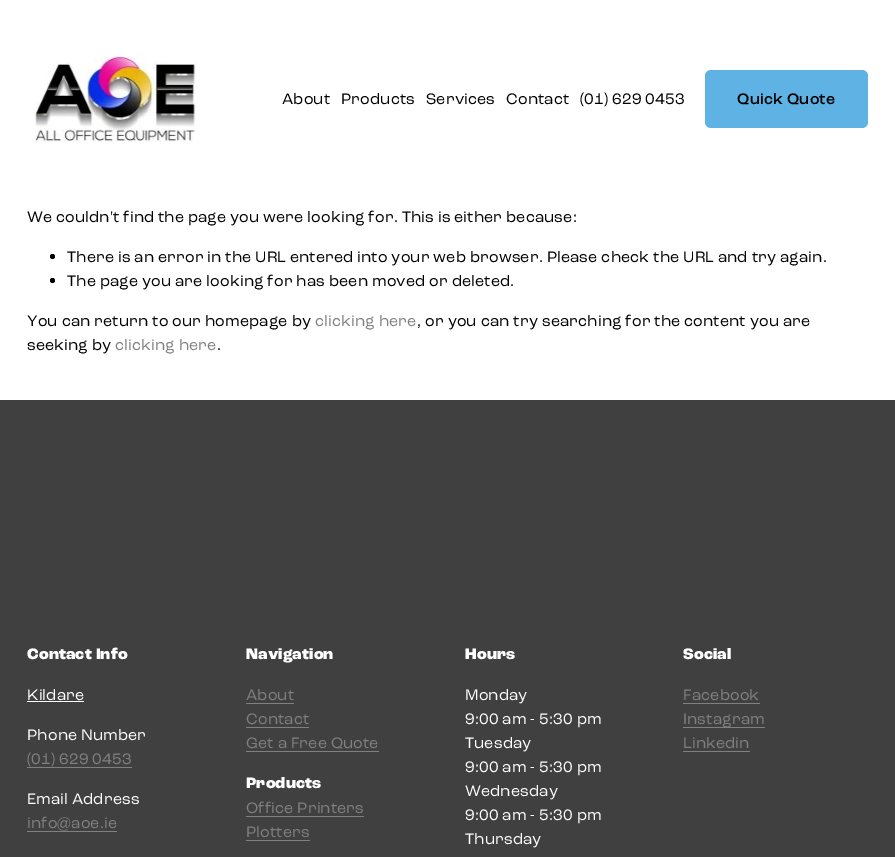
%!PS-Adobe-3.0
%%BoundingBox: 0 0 895 857
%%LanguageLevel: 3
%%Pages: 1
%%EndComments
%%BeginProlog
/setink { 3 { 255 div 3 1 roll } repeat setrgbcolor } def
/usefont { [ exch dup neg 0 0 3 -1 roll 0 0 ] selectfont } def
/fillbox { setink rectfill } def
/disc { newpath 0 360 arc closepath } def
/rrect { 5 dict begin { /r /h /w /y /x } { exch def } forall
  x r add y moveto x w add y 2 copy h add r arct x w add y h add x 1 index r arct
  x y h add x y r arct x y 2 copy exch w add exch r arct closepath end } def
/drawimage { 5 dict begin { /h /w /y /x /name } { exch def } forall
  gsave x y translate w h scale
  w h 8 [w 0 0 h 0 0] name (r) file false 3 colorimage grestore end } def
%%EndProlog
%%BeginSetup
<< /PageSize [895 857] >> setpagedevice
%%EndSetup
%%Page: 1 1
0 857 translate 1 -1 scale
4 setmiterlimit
0 0 895 857 255 255 255 fillbox
(assets/img1.rgb) 33 56 164 86 drawimage
/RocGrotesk-Regular 16 usefont
0 0 0 setink
282 104 moveto 0.15 0 (About) ashow
341 104 moveto 0.15 0 (Products) ashow
426 104 moveto 0.15 0 (Services) ashow
506 104 moveto 0.15 0 (Contact) ashow
580 104 moveto 0.15 0 (\(01\) 629 0453) ashow
94 179 228 setink
705 70 163 58 6 rrect fill
/RocGrotesk-Medium 16 usefont
0 0 0 setink
737 104 moveto 0.25 0 (Quick Quote) ashow
/RocGrotesk-Regular 16 usefont
27 222 moveto 0.15 0 (We couldn't find the page you were looking for. This is either because:) ashow
52.5 256.5 2.5 disc fill
67 262 moveto 0.15 0 (There is an error in the URL entered into your web browser. Please check the URL and try again.) ashow
52.5 280.5 2.5 disc fill
67 286 moveto 0.15 0 (The page you are looking for has been moved or deleted.) ashow
27 326 moveto 0.15 0 (You can return to our homepage by) ashow
128 128 128 setink
315 326 moveto 0.15 0 (clicking here) ashow
0 0 0 setink
417 326 moveto 0.15 0 (, or you can try searching for the content you are) ashow
27 350 moveto 0.15 0 (seeking by) ashow
128 128 128 setink
115 350 moveto 0.15 0 (clicking here) ashow
0 0 0 setink
217 350 moveto 0.15 0 (.) ashow
0 400 895 457 64 64 64 fillbox
/RocGrotesk-ExtraBold 16 usefont
255 255 255 setink
27 659 moveto 0.15 0 (Contact Info) ashow
/RocGrotesk-Regular 16 usefont
27 700 moveto 0.15 0 (Kildare) ashow
27 701 57 1 255 255 255 fillbox
27 740 moveto 0.15 0 (Phone Number) ashow
128 128 128 setink
27 764 moveto 0.15 0 (\(01\) 629 0453) ashow
27 767 105 1 128 128 128 fillbox
255 255 255 setink
27 804 moveto 0.15 0 (Email Address) ashow
128 128 128 setink
27 828 moveto 0.15 0 (info@aoe.ie) ashow
27 831 90 1 128 128 128 fillbox
/RocGrotesk-ExtraBold 16 usefont
255 255 255 setink
246 659 moveto 0.15 0 (Navigation) ashow
/RocGrotesk-Regular 16 usefont
128 128 128 setink
246 700 moveto 0.15 0 (About) ashow
246 703 48 1 128 128 128 fillbox
246 724 moveto 0.15 0 (Contact) ashow
246 727 63 1 128 128 128 fillbox
246 748 moveto 0.15 0 (Get a Free Quote) ashow
246 751 133 1 128 128 128 fillbox
/RocGrotesk-ExtraBold 16 usefont
255 255 255 setink
246 788 moveto 0.15 0 (Products) ashow
/RocGrotesk-Regular 16 usefont
128 128 128 setink
246 813 moveto 0.15 0 (Office Printers) ashow
246 816 118 1 128 128 128 fillbox
246 837 moveto 0.15 0 (Plotters) ashow
246 840 64 1 128 128 128 fillbox
/RocGrotesk-ExtraBold 16 usefont
255 255 255 setink
465 659 moveto 0.15 0 (Hours) ashow
/RocGrotesk-Regular 16 usefont
465 700 moveto 0.15 0 (Monday) ashow
465 724 moveto 0.15 0 (9:00 am - 5:30 pm) ashow
465 748 moveto 0.15 0 (Tuesday) ashow
465 772 moveto 0.15 0 (9:00 am - 5:30 pm) ashow
465 796 moveto 0.15 0 (Wednesday) ashow
465 820 moveto 0.15 0 (9:00 am - 5:30 pm) ashow
465 844 moveto 0.15 0 (Thursday) ashow
/RocGrotesk-ExtraBold 16 usefont
683 659 moveto 0.15 0 (Social) ashow
/RocGrotesk-Regular 16 usefont
128 128 128 setink
683 700 moveto 0.15 0 (Facebook) ashow
683 703 77 1 128 128 128 fillbox
683 727 82 1 128 128 128 fillbox
683 724 moveto 0.15 0 (Instagram) ashow
683 748 moveto 0.15 0 (Linkedin) ashow
683 751 67 1 128 128 128 fillbox
showpage
%%EOF
